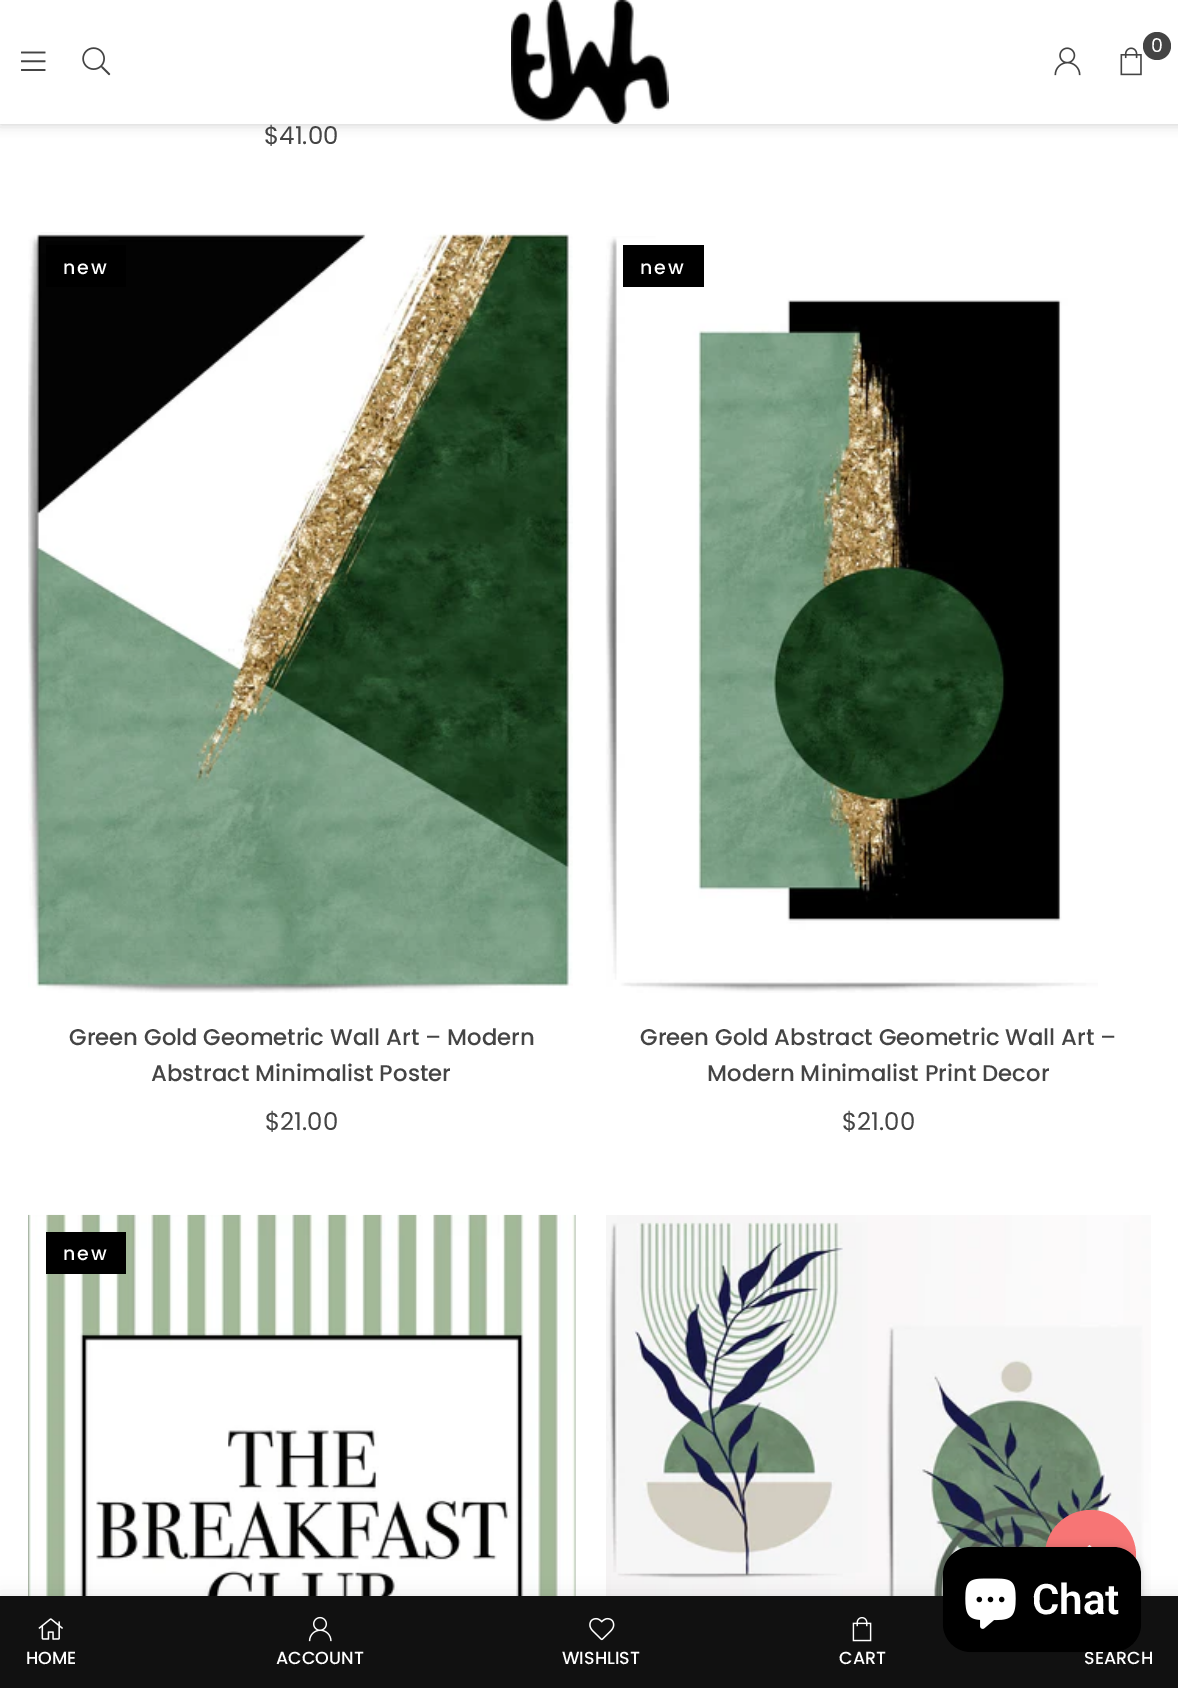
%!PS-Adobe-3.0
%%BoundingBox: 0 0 1178 1688
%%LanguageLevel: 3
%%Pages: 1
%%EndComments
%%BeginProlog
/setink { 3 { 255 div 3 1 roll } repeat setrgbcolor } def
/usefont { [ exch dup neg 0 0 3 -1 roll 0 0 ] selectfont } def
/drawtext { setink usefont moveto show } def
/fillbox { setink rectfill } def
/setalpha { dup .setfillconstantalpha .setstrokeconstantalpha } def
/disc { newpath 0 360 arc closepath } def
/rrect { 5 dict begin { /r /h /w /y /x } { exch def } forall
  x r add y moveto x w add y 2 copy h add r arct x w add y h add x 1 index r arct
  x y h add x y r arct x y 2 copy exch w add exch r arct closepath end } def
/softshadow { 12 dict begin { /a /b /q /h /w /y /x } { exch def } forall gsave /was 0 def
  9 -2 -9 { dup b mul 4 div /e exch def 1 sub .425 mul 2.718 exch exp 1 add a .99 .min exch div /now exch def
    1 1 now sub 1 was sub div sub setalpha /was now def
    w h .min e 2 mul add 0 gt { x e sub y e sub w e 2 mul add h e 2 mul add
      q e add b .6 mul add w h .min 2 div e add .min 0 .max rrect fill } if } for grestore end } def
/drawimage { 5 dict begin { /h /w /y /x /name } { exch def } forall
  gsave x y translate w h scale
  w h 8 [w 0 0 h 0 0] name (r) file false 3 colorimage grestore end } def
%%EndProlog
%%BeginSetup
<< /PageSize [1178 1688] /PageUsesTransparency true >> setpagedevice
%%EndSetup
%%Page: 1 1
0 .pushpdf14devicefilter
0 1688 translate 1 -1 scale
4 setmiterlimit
0 0 1178 1688 255 255 255 fillbox
0 0 0 setink
0 0 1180 124 0 6 0.2 softshadow
0 0 1178 124 255 255 255 fillbox
(assets/img1.rgb) 511 0 158 124 drawimage
68 68 68 setink
1157 46 14 disc fill
(0) 1151 52 /Poppins-Regular 19 255 255 255 drawtext
(assets/img2.rgb) 1120 47 22 29 drawimage
(assets/img3.rgb) 1054 47 27 29 drawimage
(assets/img4.rgb) 21 51 25 20 drawimage
(assets/img5.rgb) 82 47 29 29 drawimage
($41.00) 264 144 /Poppins-Regular 24.5 68 68 68 drawtext
(assets/img6.rgb) 28 232 545 761 drawimage
46 245 80 42 0 0 0 fillbox
/Poppins-Medium 19 usefont
255 255 255 setink
63 274 moveto 2 0 (new) ashow
(Green Gold Geometric Wall Art – Modern) 69 1045 /Poppins-Medium 22.75 68 68 68 drawtext
(Abstract Minimalist Poster) 151 1081 /Poppins-Medium 22.75 68 68 68 drawtext
($21.00) 265 1130 /Poppins-Regular 24.5 68 68 68 drawtext
(assets/img7.rgb) 605 236 493 757 drawimage
623 245 81 42 0 0 0 fillbox
/Poppins-Medium 19 usefont
255 255 255 setink
640 274 moveto 2 0 (new) ashow
(Green Gold Abstract Geometric Wall Art –) 640 1045 /Poppins-Medium 22.75 68 68 68 drawtext
(Modern Minimalist Print Decor) 707 1081 /Poppins-Medium 22.75 68 68 68 drawtext
($21.00) 842 1130 /Poppins-Regular 24.5 68 68 68 drawtext
(assets/img8.rgb) 28 1214 548 382 drawimage
46 1232 80 42 0 0 0 fillbox
/Poppins-Medium 19 usefont
255 255 255 setink
63 1260 moveto 2 0 (new) ashow
(assets/img9.rgb) 606 1215 545 381 drawimage
0 0 0 setink
0 1596 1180 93 0 9 0.1 softshadow
0 1596 1178 92 17 17 17 fillbox
247 117 117 setink
1090.5 1555.5 45.5 disc fill
(assets/img10.rgb) 1087 1545 5 2 drawimage
0 0 0 setink
943 1547 198 105 28 4.5 0.15 softshadow
(SEARCH) 1084 1664 /Poppins-Medium 17.5 255 255 255 drawtext
0 0 0 setink
943 1547 198 105 28 rrect fill
(assets/img11.rgb) 965 1578 51 51 drawimage
(Chat) 1032 1614 /Roboto-SemiBold 42 255 255 255 drawtext
(assets/img12.rgb) 38 1618 25 22 drawimage
(HOME) 26 1664 /Poppins-Medium 17.5 255 255 255 drawtext
(assets/img13.rgb) 308 1616 24 26 drawimage
(ACCOUNT) 276 1664 /Poppins-Medium 17.5 255 255 255 drawtext
(assets/img14.rgb) 589 1617 26 24 drawimage
(WISHLIST) 562 1664 /Poppins-Medium 17.5 255 255 255 drawtext
(assets/img15.rgb) 852 1617 20 25 drawimage
(CART) 839 1664 /Poppins-Medium 17.5 255 255 255 drawtext
.poppdf14devicefilter showpage
%%EOF
